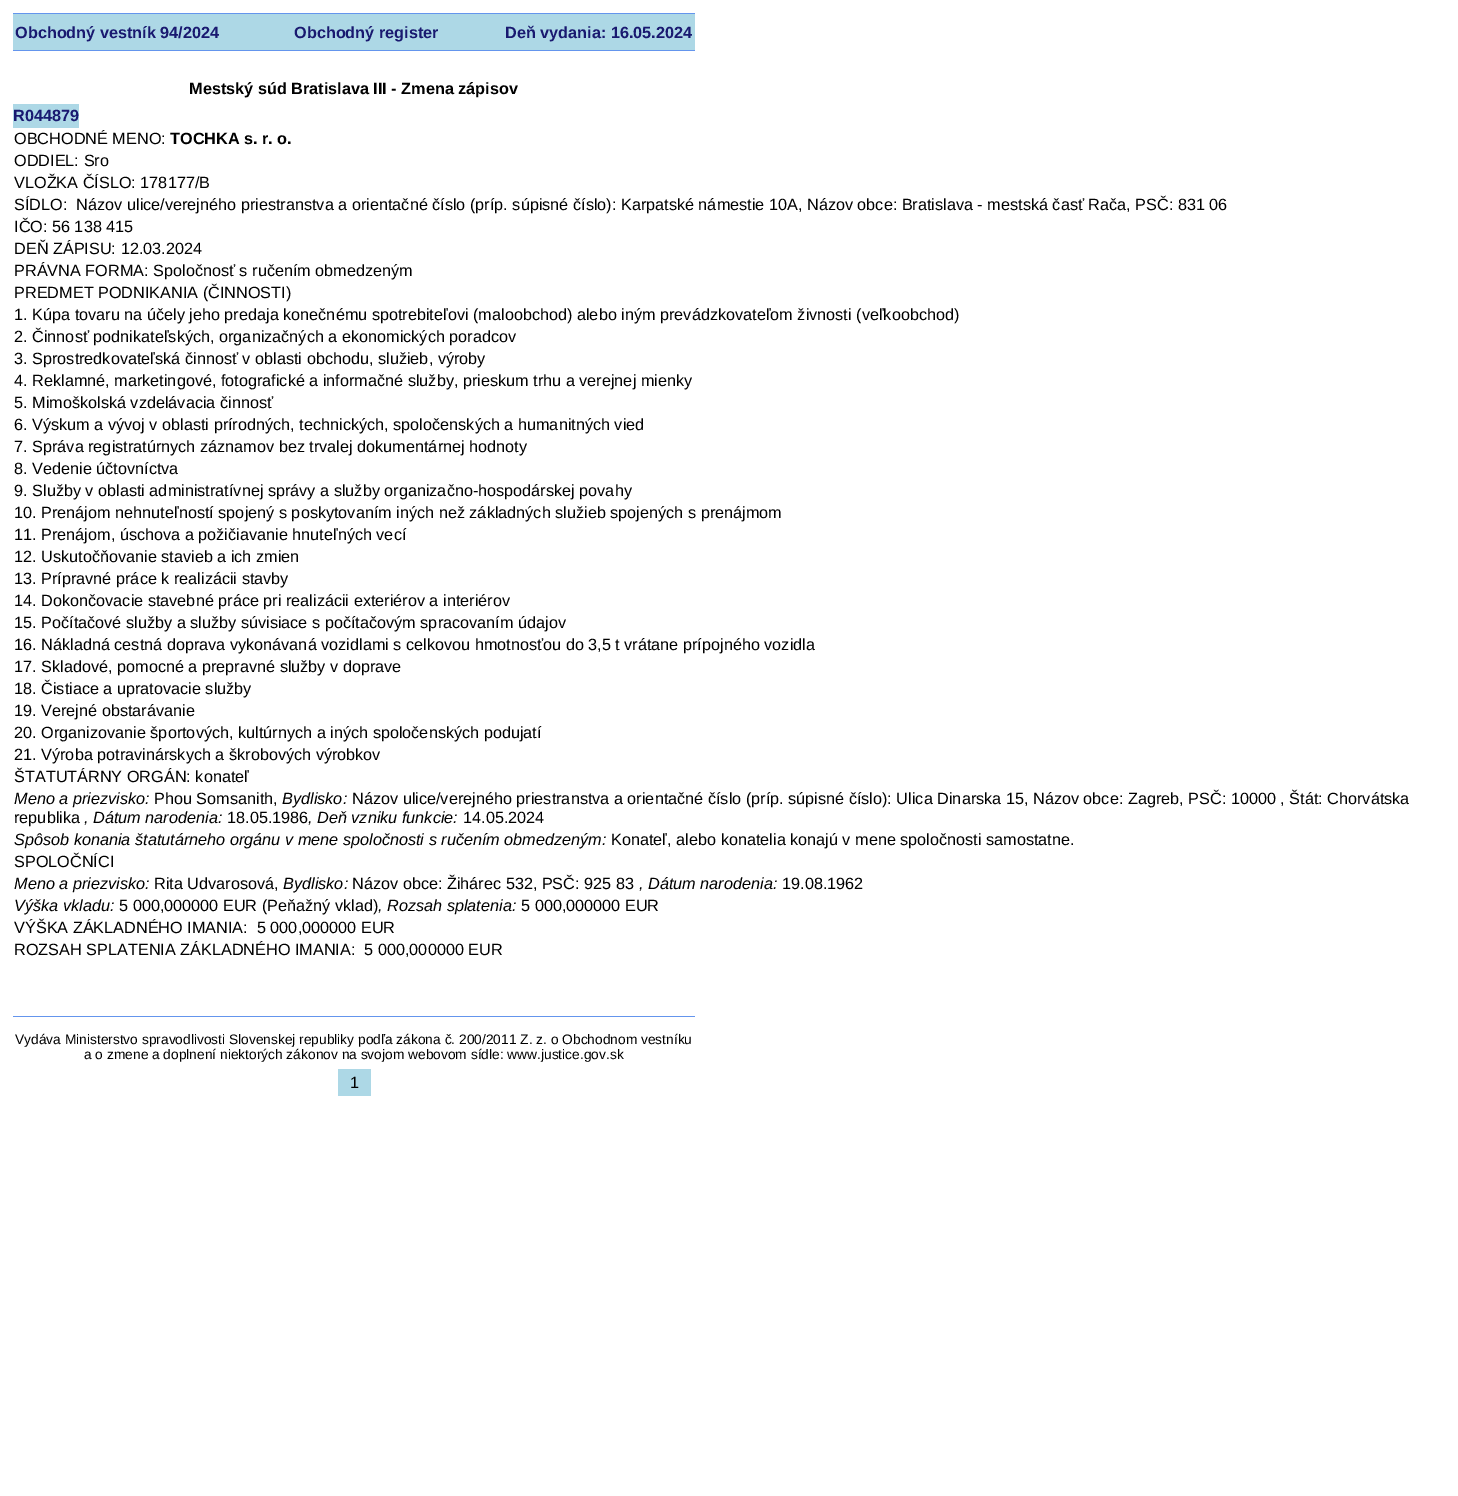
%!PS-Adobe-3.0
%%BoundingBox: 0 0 1458 1496
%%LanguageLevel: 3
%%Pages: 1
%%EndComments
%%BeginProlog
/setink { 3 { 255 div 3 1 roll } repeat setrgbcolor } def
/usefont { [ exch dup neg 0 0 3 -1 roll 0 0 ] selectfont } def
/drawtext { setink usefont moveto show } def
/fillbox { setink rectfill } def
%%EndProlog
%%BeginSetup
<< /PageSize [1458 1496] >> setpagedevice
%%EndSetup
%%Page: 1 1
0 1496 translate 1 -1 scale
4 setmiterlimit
0 0 1458 1496 255 255 255 fillbox
13 14 682 36 173 216 230 fillbox
13 13 682 1 100 149 237 fillbox
13 50 682 1 100 149 237 fillbox
(Obchodný vestník 94/2024) 15 38 /LiberationSans-Bold 16.25 25 25 112 drawtext
(Obchodný register) 294 38 /LiberationSans-Bold 16.25 25 25 112 drawtext
(Deň vydania: 16.05.2024) 505 38 /LiberationSans-Bold 16.25 25 25 112 drawtext
(Mestský súd Bratislava III - Zmena zápisov) 189 94 /LiberationSans-Bold 16.25 0 0 0 drawtext
13 104 66 24 173 216 230 fillbox
(R044879) 13 121 /LiberationSans-Bold 16.25 25 25 112 drawtext
(OBCHODNÉ MENO:) 14 144 /LiberationSans-Regular 16.25 0 0 0 drawtext
(TOCHKA s. r. o.) 170 144 /LiberationSans-Bold 16.25 0 0 0 drawtext
(ODDIEL: Sro) 14 166 /LiberationSans-Regular 16.25 0 0 0 drawtext
(VLOŽKA ČÍSLO: 178177/B) 14 188 /LiberationSans-Regular 16.25 0 0 0 drawtext
(SÍDLO:  Názov ulice/verejného priestranstva a orientačné číslo \(príp. súpisné číslo\): Karpatské námestie 10A, Názov obce: Bratislava - mestská časť Rača, PSČ: 831 06) 14 210 /LiberationSans-Regular 16.25 0 0 0 drawtext
(IČO: 56 138 415) 14 232 /LiberationSans-Regular 16.25 0 0 0 drawtext
(DEŇ ZÁPISU: 12.03.2024) 14 254 /LiberationSans-Regular 16.25 0 0 0 drawtext
(PRÁVNA FORMA: Spoločnosť s ručením obmedzeným) 14 276 /LiberationSans-Regular 16.25 0 0 0 drawtext
(PREDMET PODNIKANIA \(ČINNOSTI\)) 14 298 /LiberationSans-Regular 16.25 0 0 0 drawtext
(1. Kúpa tovaru na účely jeho predaja konečnému spotrebiteľovi \(maloobchod\) alebo iným prevádzkovateľom živnosti \(veľkoobchod\)) 14 320 /LiberationSans-Regular 16.25 0 0 0 drawtext
(2. Činnosť podnikateľských, organizačných a ekonomických poradcov) 14 342 /LiberationSans-Regular 16.25 0 0 0 drawtext
(3. Sprostredkovateľská činnosť v oblasti obchodu, služieb, výroby) 14 364 /LiberationSans-Regular 16.25 0 0 0 drawtext
(4. Reklamné, marketingové, fotografické a informačné služby, prieskum trhu a verejnej mienky) 14 386 /LiberationSans-Regular 16.25 0 0 0 drawtext
(5. Mimoškolská vzdelávacia činnosť) 14 408 /LiberationSans-Regular 16.25 0 0 0 drawtext
(6. Výskum a vývoj v oblasti prírodných, technických, spoločenských a humanitných vied) 14 430 /LiberationSans-Regular 16.25 0 0 0 drawtext
(7. Správa registratúrnych záznamov bez trvalej dokumentárnej hodnoty) 14 452 /LiberationSans-Regular 16.25 0 0 0 drawtext
(8. Vedenie účtovníctva) 14 474 /LiberationSans-Regular 16.25 0 0 0 drawtext
(9. Služby v oblasti administratívnej správy a služby organizačno-hospodárskej povahy) 14 496 /LiberationSans-Regular 16.25 0 0 0 drawtext
(10. Prenájom nehnuteľností spojený s poskytovaním iných než základných služieb spojených s prenájmom) 14 518 /LiberationSans-Regular 16.25 0 0 0 drawtext
(11. Prenájom, úschova a požičiavanie hnuteľných vecí) 14 540 /LiberationSans-Regular 16.25 0 0 0 drawtext
(12. Uskutočňovanie stavieb a ich zmien) 14 562 /LiberationSans-Regular 16.25 0 0 0 drawtext
(13. Prípravné práce k realizácii stavby) 14 584 /LiberationSans-Regular 16.25 0 0 0 drawtext
(14. Dokončovacie stavebné práce pri realizácii exteriérov a interiérov) 14 606 /LiberationSans-Regular 16.25 0 0 0 drawtext
(15. Počítačové služby a služby súvisiace s počítačovým spracovaním údajov) 14 628 /LiberationSans-Regular 16.25 0 0 0 drawtext
(16. Nákladná cestná doprava vykonávaná vozidlami s celkovou hmotnosťou do 3,5 t vrátane prípojného vozidla) 14 650 /LiberationSans-Regular 16.25 0 0 0 drawtext
(17. Skladové, pomocné a prepravné služby v doprave) 14 672 /LiberationSans-Regular 16.25 0 0 0 drawtext
(18. Čistiace a upratovacie služby) 14 694 /LiberationSans-Regular 16.25 0 0 0 drawtext
(19. Verejné obstarávanie) 14 716 /LiberationSans-Regular 16.25 0 0 0 drawtext
(20. Organizovanie športových, kultúrnych a iných spoločenských podujatí) 14 738 /LiberationSans-Regular 16.25 0 0 0 drawtext
(21. Výroba potravinárskych a škrobových výrobkov) 14 760 /LiberationSans-Regular 16.25 0 0 0 drawtext
(ŠTATUTÁRNY ORGÁN: konateľ) 14 782 /LiberationSans-Regular 16.25 0 0 0 drawtext
(Meno a priezvisko:) 14 804 /LiberationSans-Italic 16.25 0 0 0 drawtext
(Phou Somsanith,) 154 804 /LiberationSans-Regular 16.25 0 0 0 drawtext
(Bydlisko:) 282 804 /LiberationSans-Italic 16.25 0 0 0 drawtext
(Názov ulice/verejného priestranstva a orientačné číslo \(príp. súpisné číslo\): Ulica Dinarska 15, Názov obce: Zagreb, PSČ: 10000 , Štát: Chorvátska) 352 804 /LiberationSans-Regular 16.25 0 0 0 drawtext
(republika) 14 823 /LiberationSans-Regular 16.25 0 0 0 drawtext
(, Dátum narodenia:) 84 823 /LiberationSans-Italic 16.25 0 0 0 drawtext
(18.05.1986) 227 823 /LiberationSans-Regular 16.25 0 0 0 drawtext
(, Deň vzniku funkcie:) 308 823 /LiberationSans-Italic 16.25 0 0 0 drawtext
(14.05.2024) 463 823 /LiberationSans-Regular 16.25 0 0 0 drawtext
(Spôsob konania štatutárneho orgánu v mene spoločnosti s ručením obmedzeným:) 14 845 /LiberationSans-Italic 16.25 0 0 0 drawtext
(Konateľ, alebo konatelia konajú v mene spoločnosti samostatne.) 611 845 /LiberationSans-Regular 16.25 0 0 0 drawtext
(SPOLOČNÍCI) 14 867 /LiberationSans-Regular 16.25 0 0 0 drawtext
(Meno a priezvisko:) 14 889 /LiberationSans-Italic 16.25 0 0 0 drawtext
(Rita Udvarosová,) 154 889 /LiberationSans-Regular 16.25 0 0 0 drawtext
(Bydlisko:) 283 889 /LiberationSans-Italic 16.25 0 0 0 drawtext
(Názov obce: Žihárec 532, PSČ: 925 83) 352 889 /LiberationSans-Regular 16.25 0 0 0 drawtext
(, Dátum narodenia:) 639 889 /LiberationSans-Italic 16.25 0 0 0 drawtext
(19.08.1962) 782 889 /LiberationSans-Regular 16.25 0 0 0 drawtext
(Výška vkladu:) 14 911 /LiberationSans-Italic 16.25 0 0 0 drawtext
(5 000,000000 EUR \(Peňažný vklad\)) 119 911 /LiberationSans-Regular 16.25 0 0 0 drawtext
(, Rozsah splatenia:) 378 911 /LiberationSans-Italic 16.25 0 0 0 drawtext
(5 000,000000 EUR) 521 911 /LiberationSans-Regular 16.25 0 0 0 drawtext
(VÝŠKA ZÁKLADNÉHO IMANIA:  5 000,000000 EUR) 14 933 /LiberationSans-Regular 16.25 0 0 0 drawtext
(ROZSAH SPLATENIA ZÁKLADNÉHO IMANIA:  5 000,000000 EUR) 14 955 /LiberationSans-Regular 16.25 0 0 0 drawtext
13 1016 682 1 100 149 237 fillbox
(Vydáva Ministerstvo spravodlivosti Slovenskej republiky podľa zákona č. 200/2011 Z. z. o Obchodnom vestníku) 15 1044 /LiberationSans-Regular 13.75 0 0 0 drawtext
(a o zmene a doplnení niektorých zákonov na svojom webovom sídle: www.justice.gov.sk) 84 1059 /LiberationSans-Regular 13.75 0 0 0 drawtext
338 1069 33 27 173 216 230 fillbox
(1) 350 1088 /LiberationSans-Regular 16.25 0 0 0 drawtext
showpage
%%EOF
